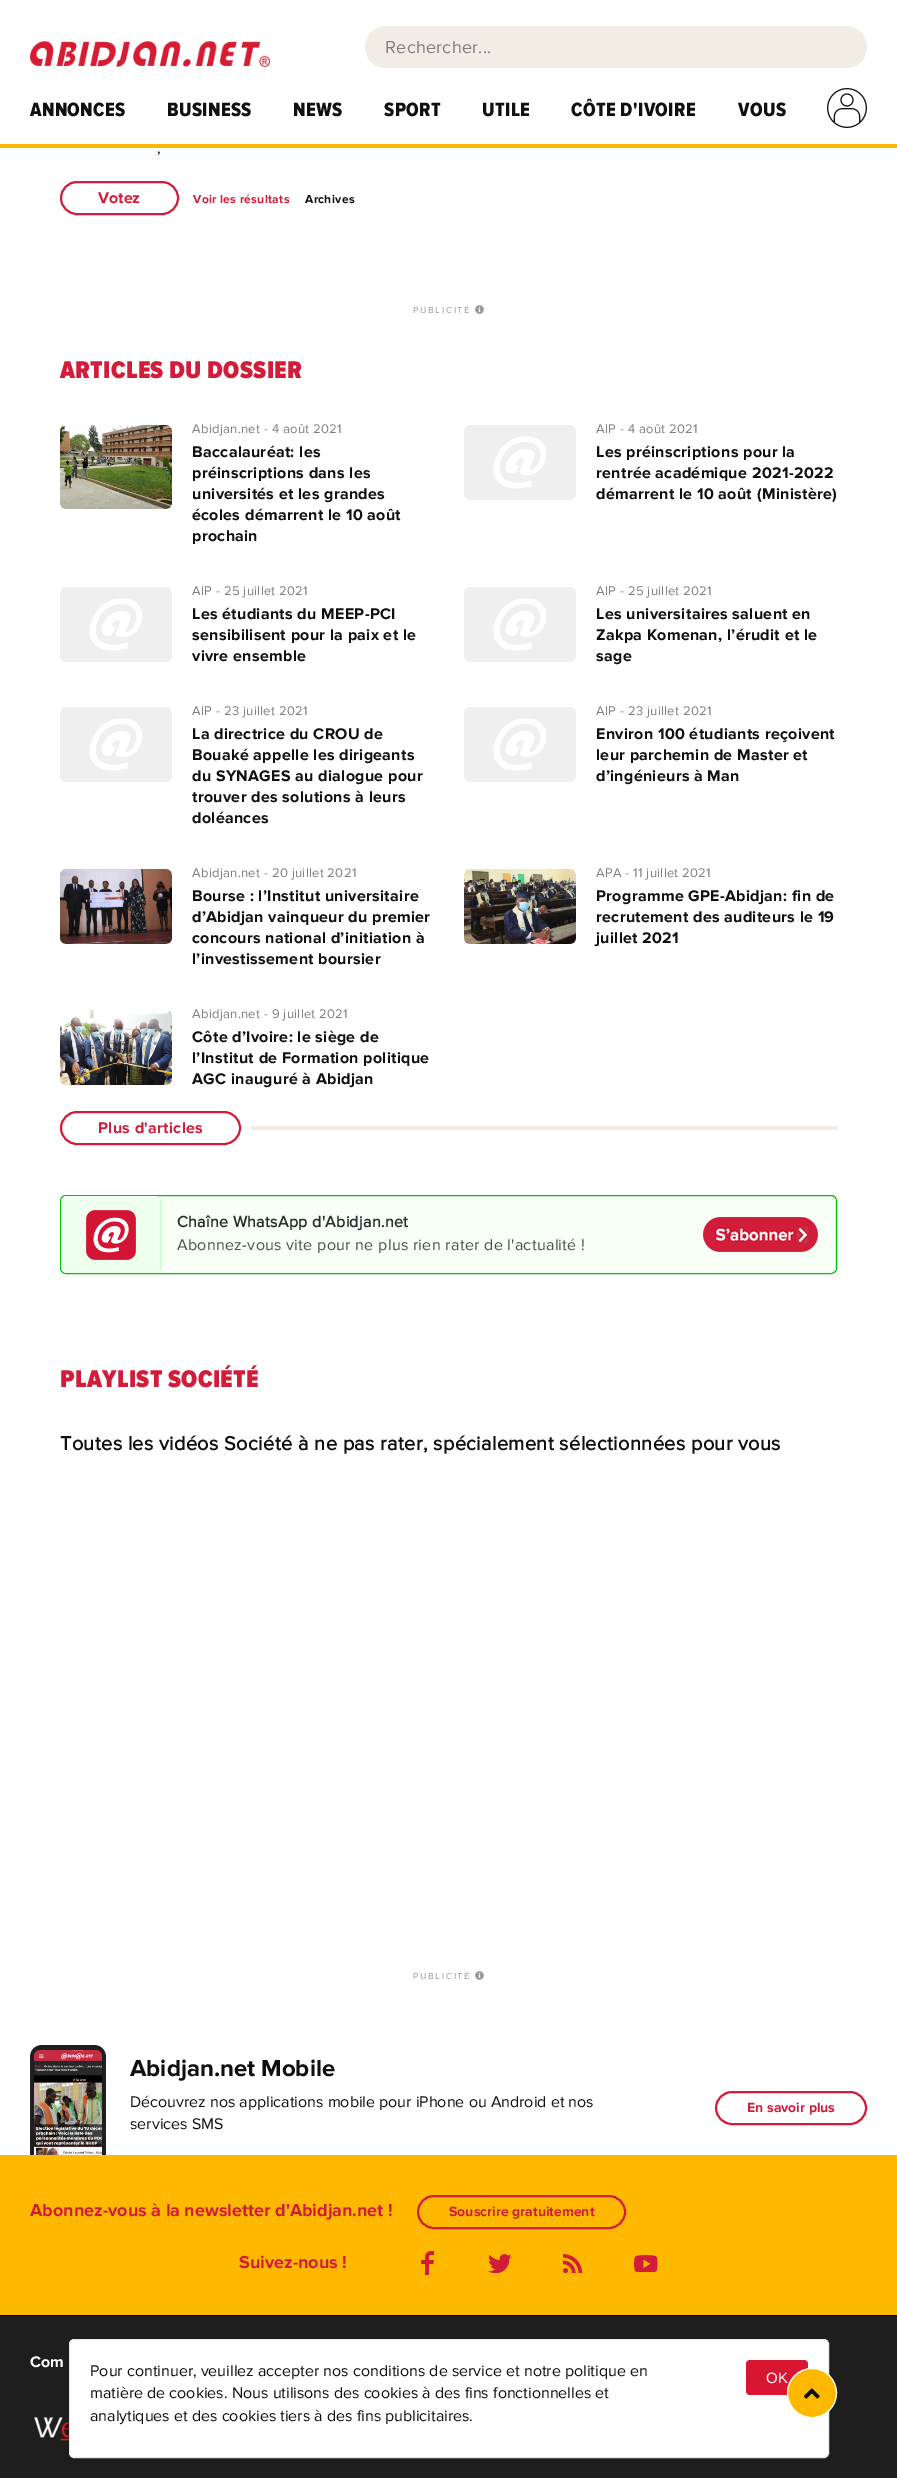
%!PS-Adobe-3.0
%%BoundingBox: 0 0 897 2478
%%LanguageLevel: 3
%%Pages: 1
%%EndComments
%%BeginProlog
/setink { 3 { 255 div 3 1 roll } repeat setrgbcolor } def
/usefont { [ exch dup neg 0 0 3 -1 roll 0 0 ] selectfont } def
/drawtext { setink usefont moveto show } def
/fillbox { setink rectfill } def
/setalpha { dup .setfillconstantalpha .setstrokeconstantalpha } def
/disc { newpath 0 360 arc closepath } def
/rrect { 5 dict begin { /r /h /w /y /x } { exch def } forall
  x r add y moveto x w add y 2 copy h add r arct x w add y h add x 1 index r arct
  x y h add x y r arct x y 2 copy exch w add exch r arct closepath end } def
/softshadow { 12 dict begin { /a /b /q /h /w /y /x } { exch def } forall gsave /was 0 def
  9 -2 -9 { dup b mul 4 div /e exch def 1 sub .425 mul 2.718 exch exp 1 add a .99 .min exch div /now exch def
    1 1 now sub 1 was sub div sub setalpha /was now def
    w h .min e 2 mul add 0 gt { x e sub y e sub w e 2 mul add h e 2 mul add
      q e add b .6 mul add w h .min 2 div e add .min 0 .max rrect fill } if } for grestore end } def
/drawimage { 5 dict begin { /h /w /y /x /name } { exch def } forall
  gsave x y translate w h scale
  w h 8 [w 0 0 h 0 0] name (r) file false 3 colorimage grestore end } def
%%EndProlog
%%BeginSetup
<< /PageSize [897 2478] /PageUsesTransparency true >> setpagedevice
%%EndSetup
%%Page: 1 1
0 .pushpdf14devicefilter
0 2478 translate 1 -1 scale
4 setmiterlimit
0 0 897 2478 255 255 255 fillbox
241 237 229 setink
365 26 502 42 21 rrect fill
/ProximaNova-Regular 18 usefont
127 127 127 setink
385 53 moveto 0.25 0 (Rechercher...) ashow
/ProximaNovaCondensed-ExtraBold 20 usefont
16 16 16 setink
30 116 moveto 0.32 0 (ANNONCES) ashow
167 116 moveto 0.32 0 (BUSINESS) ashow
293 116 moveto 0.32 0 (NEWS) ashow
384 116 moveto 0.32 0 (SPORT) ashow
482 116 moveto 0.32 0 (UTILE) ashow
571 116 moveto 0.32 0 (CÔTE D'IVOIRE) ashow
738 116 moveto 0.32 0 (VOUS) ashow
(assets/img1.rgb) 827 88 40 40 drawimage
(assets/img2.rgb) 30 41 240 26 drawimage
0 144 897 4 255 184 0 fillbox
/ProximaNova-Regular 16 usefont
16 16 16 setink
157 153 moveto 0.32 0 (,) ashow
210 29 58 setink
2 setlinewidth
61 182 117 32 16 rrect stroke
(Votez) 98 203 /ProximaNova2-Bold 16 210 29 58 drawtext
/ProximaNova2-Bold 12 usefont
193 203 moveto 0.32 0 (Voir les résultats) ashow
16 16 16 setink
305 203 moveto 0.32 0 (Archives) ashow
/ProximaNova-Regular 9 usefont
153 153 153 setink
413 313 moveto 1.75 0 (PUBLICITÉ) ashow
(assets/img3.rgb) 475 305 9 9 drawimage
/ProximaNovaCondensed-Black 25 usefont
210 29 58 setink
60 378 moveto 0.32 0 (ARTICLES DU DOSSIER) ashow
(assets/img4.rgb) 60 425 112 84 drawimage
/ProximaNova-Regular 13 usefont
127 127 127 setink
192 433 moveto 0.32 0 (Abidjan.net - 4 août 2021) ashow
/ProximaNova2-Bold 16 usefont
16 16 16 setink
192 457 moveto 0.32 0 (Baccalauréat: les) ashow
192 478 moveto 0.32 0 (préinscriptions dans les) ashow
192 499 moveto 0.32 0 (universités et les grandes) ashow
192 520 moveto 0.32 0 (écoles démarrent le 10 août) ashow
192 541 moveto 0.32 0 (prochain) ashow
(assets/img5.rgb) 464 425 112 75 drawimage
/ProximaNova-Regular 13 usefont
127 127 127 setink
596 433 moveto 0.32 0 (AIP - 4 août 2021) ashow
/ProximaNova2-Bold 16 usefont
16 16 16 setink
596 457 moveto 0.32 0 (Les préinscriptions pour la) ashow
596 478 moveto 0.32 0 (rentrée académique 2021-2022) ashow
596 499 moveto 0.32 0 (démarrent le 10 août \(Ministère\)) ashow
(assets/img5.rgb) 60 587 112 75 drawimage
/ProximaNova-Regular 13 usefont
127 127 127 setink
192 595 moveto 0.32 0 (AIP - 25 juillet 2021) ashow
/ProximaNova2-Bold 16 usefont
16 16 16 setink
192 619 moveto 0.32 0 (Les étudiants du MEEP-PCI) ashow
192 640 moveto 0.32 0 (sensibilisent pour la paix et le) ashow
192 661 moveto 0.32 0 (vivre ensemble) ashow
(assets/img5.rgb) 464 587 112 75 drawimage
/ProximaNova-Regular 13 usefont
127 127 127 setink
596 595 moveto 0.32 0 (AIP - 25 juillet 2021) ashow
/ProximaNova2-Bold 16 usefont
16 16 16 setink
596 619 moveto 0.32 0 (Les universitaires saluent en) ashow
596 640 moveto 0.32 0 (Zakpa Komenan, l’érudit et le) ashow
596 661 moveto 0.32 0 (sage) ashow
(assets/img5.rgb) 60 707 112 75 drawimage
/ProximaNova-Regular 13 usefont
127 127 127 setink
192 715 moveto 0.32 0 (AIP - 23 juillet 2021) ashow
/ProximaNova2-Bold 16 usefont
16 16 16 setink
192 739 moveto 0.32 0 (La directrice du CROU de) ashow
192 760 moveto 0.32 0 (Bouaké appelle les dirigeants) ashow
192 781 moveto 0.32 0 (du SYNAGES au dialogue pour) ashow
192 802 moveto 0.32 0 (trouver des solutions à leurs) ashow
192 823 moveto 0.32 0 (doléances) ashow
(assets/img5.rgb) 464 707 112 75 drawimage
/ProximaNova-Regular 13 usefont
127 127 127 setink
596 715 moveto 0.32 0 (AIP - 23 juillet 2021) ashow
/ProximaNova2-Bold 16 usefont
16 16 16 setink
596 739 moveto 0.32 0 (Environ 100 étudiants reçoivent) ashow
596 760 moveto 0.32 0 (leur parchemin de Master et) ashow
596 781 moveto 0.32 0 (d’ingénieurs à Man) ashow
(assets/img6.rgb) 60 869 112 75 drawimage
/ProximaNova-Regular 13 usefont
127 127 127 setink
192 877 moveto 0.32 0 (Abidjan.net - 20 juillet 2021) ashow
/ProximaNova2-Bold 16 usefont
16 16 16 setink
192 901 moveto 0.32 0 (Bourse : l’Institut universitaire) ashow
192 922 moveto 0.32 0 (d’Abidjan vainqueur du premier) ashow
192 943 moveto 0.32 0 (concours national d’initiation à) ashow
192 964 moveto 0.32 0 (l’investissement boursier) ashow
(assets/img7.rgb) 464 869 112 75 drawimage
/ProximaNova-Regular 13 usefont
127 127 127 setink
596 877 moveto 0.32 0 (APA - 11 juillet 2021) ashow
/ProximaNova2-Bold 16 usefont
16 16 16 setink
596 901 moveto 0.32 0 (Programme GPE-Abidjan: fin de) ashow
596 922 moveto 0.32 0 (recrutement des auditeurs le 19) ashow
596 943 moveto 0.32 0 (juillet 2021) ashow
(assets/img8.rgb) 60 1010 112 75 drawimage
/ProximaNova-Regular 13 usefont
127 127 127 setink
192 1018 moveto 0.32 0 (Abidjan.net - 9 juillet 2021) ashow
/ProximaNova2-Bold 16 usefont
16 16 16 setink
192 1042 moveto 0.32 0 (Côte d’Ivoire: le siège de) ashow
192 1063 moveto 0.32 0 (l’Institut de Formation politique) ashow
192 1084 moveto 0.32 0 (AGC inauguré à Abidjan) ashow
210 29 58 setink
61 1112 179 32 16 rrect stroke
98 1133 moveto 0.32 0 (Plus d'articles) ashow
251 1126 586 4 241 237 229 fillbox
247 255 247 setink
60.5 1195.5 776 78 5.5 rrect gsave fill grestore
0 195 7 setink
1 setlinewidth
stroke
238 255 238 setink
61 1196 100 77 6 rrect fill
(assets/img9.rgb) 86 1210 50 50 drawimage
160 1199 1 71 195 255 195 fillbox
/ProximaNova-Bold 16 usefont
44 44 44 setink
177 1227 moveto 0.32 0 (Chaîne WhatsApp d'Abidjan.net) ashow
/ProximaNova-Regular 16 usefont
79 78 78 setink
177 1250 moveto 0.32 0 (Abonnez-vous vite pour ne plus rien rater de l'actualité !) ashow
(assets/img10.rgb) 703 1217 115 35 drawimage
835 1199 1 71 225 225 225 fillbox
/ProximaNovaCondensed-Black 25 usefont
210 29 58 setink
60 1387 moveto 0.32 0 (PLAYLIST SOCIÉTÉ) ashow
/ProximaNova-Bold 20 usefont
16 16 16 setink
60 1450 moveto 0.32 0 (Toutes les vidéos Société à ne pas rater, spécialement sélectionnées pour vous) ashow
/ProximaNova-Regular 9 usefont
153 153 153 setink
413 1979 moveto 1.75 0 (PUBLICITÉ) ashow
(assets/img3.rgb) 475 1971 9 9 drawimage
(assets/img11.rgb) 30 2045 76 110 drawimage
(Abidjan.net Mobile) 130 2076 /ProximaNova2-Bold 24 16 16 16 drawtext
(Découvrez nos applications mobile pour iPhone ou Android et nos) 130 2107 /ProximaNova-Regular 16 16 16 16 drawtext
(services SMS) 130 2129 /ProximaNova-Regular 16 16 16 16 drawtext
210 29 58 setink
2 setlinewidth
716 2092 150 32 16 rrect stroke
(En savoir plus) 747 2112 /ProximaNova2-Bold 14 210 29 58 drawtext
0 2155 897 160 255 184 0 fillbox
(Abonnez-vous à la newsletter d'Abidjan.net !) 30 2216 /ProximaNova2-Bold 18 210 29 58 drawtext
418 2196 207 32 16 rrect stroke
(Souscrire gratuitement) 449 2216 /ProximaNova2-Bold 14 210 29 58 drawtext
(Suivez-nous !) 239 2268 /ProximaNova2-Bold 18 210 29 58 drawtext
(assets/img12.rgb) 421 2251 14 24 drawimage
(assets/img13.rgb) 488 2254 24 19 drawimage
(assets/img14.rgb) 563 2254 20 19 drawimage
(assets/img15.rgb) 634 2255 24 17 drawimage
0 2316 897 162 30 30 30 fillbox
0 2315 897 1 0 0 0 fillbox
(Com) 30 2367 /ProximaNova2-Bold 16 255 255 255 drawtext
(assets/img16.rgb) 34 2417 35 24 drawimage
0 0 0 setink
69 2341 760 119 5 5 0.15 softshadow
255 255 255 setink
69.5 2339.5 759 118 4.5 rrect gsave fill grestore
232 235 237 setink
1 setlinewidth
stroke
(Pour continuer, veuillez accepter nos conditions de service et notre politique en) 90 2376 /ProximaNova-Regular 16 16 16 16 drawtext
(matière de cookies. Nous utilisons des cookies à des fins fonctionnelles et) 90 2398 /ProximaNova-Regular 16 16 16 16 drawtext
(analytiques et des cookies tiers à des fins publicitaires.) 90 2421 /ProximaNova-Regular 16 16 16 16 drawtext
216 22 49 setink
746 2360 62 35 4 rrect fill
(OK) 766 2383 /LiberationSans-Regular 15 255 255 255 drawtext
255 184 0 setink
812 2393 24.5 disc gsave fill grestore
255 255 255 setink
stroke
(assets/img17.rgb) 804 2388 16 11 drawimage
.poppdf14devicefilter showpage
%%EOF
